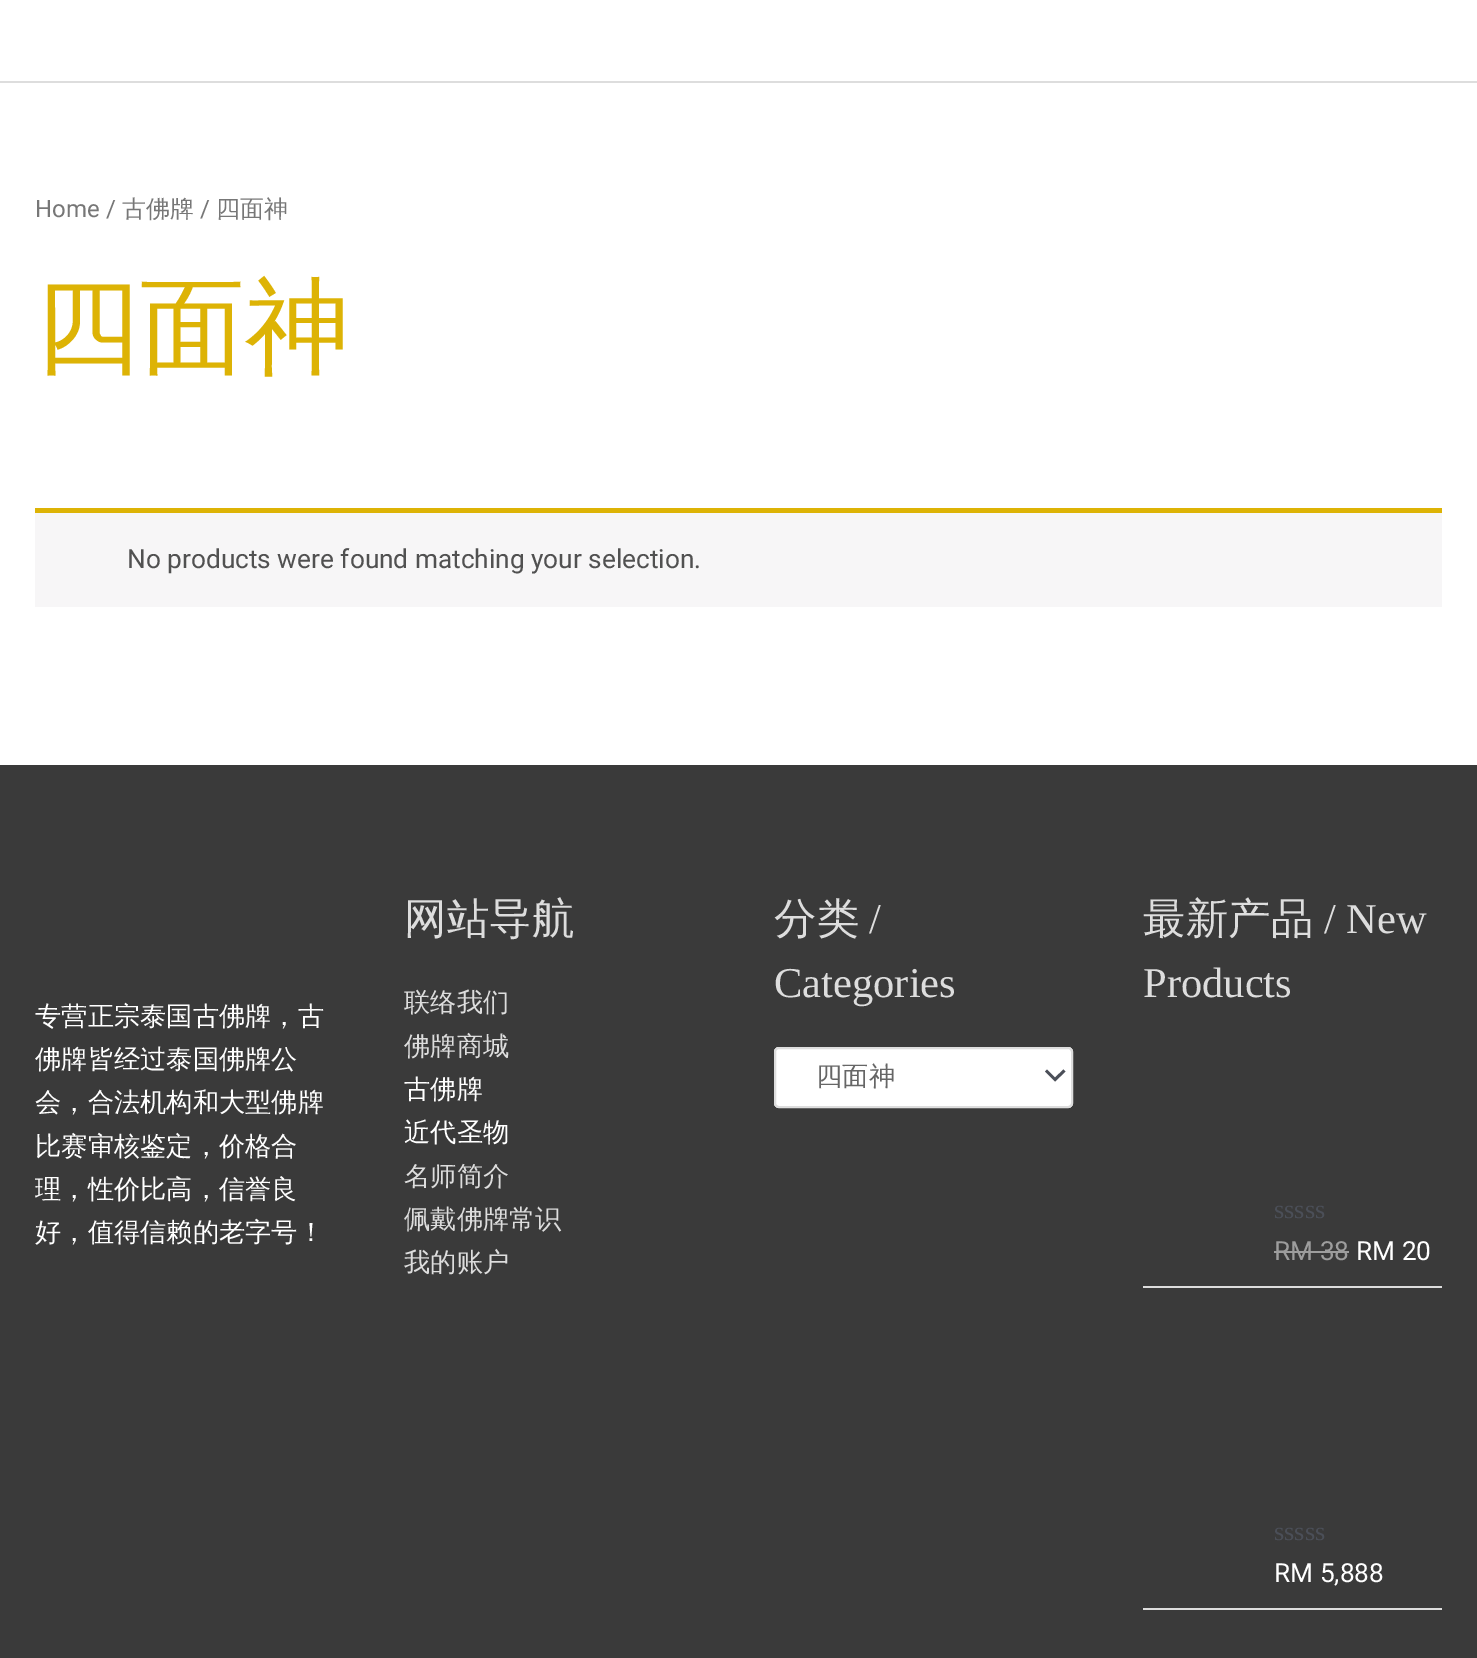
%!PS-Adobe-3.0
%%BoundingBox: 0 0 1477 1658
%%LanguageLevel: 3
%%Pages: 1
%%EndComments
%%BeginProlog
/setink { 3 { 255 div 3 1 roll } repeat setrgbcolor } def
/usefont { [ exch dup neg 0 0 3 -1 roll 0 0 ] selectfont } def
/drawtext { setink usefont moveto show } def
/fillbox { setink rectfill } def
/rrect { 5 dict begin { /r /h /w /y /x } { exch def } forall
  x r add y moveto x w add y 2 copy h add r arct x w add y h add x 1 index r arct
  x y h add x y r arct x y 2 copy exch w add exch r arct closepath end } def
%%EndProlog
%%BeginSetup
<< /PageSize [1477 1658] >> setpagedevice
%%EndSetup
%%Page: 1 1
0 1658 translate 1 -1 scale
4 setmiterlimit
0 0 1477 1658 255 255 255 fillbox
0 81 1477 2 221 221 221 fillbox
(Home /) 35 217 /Roboto-Regular 24 119 119 119 drawtext
(古佛牌) 122 217 /WenQuanYiZenHei-Medium 24 119 119 119 drawtext
(/) 200 217 /Roboto-Regular 24 119 119 119 drawtext
(四面神) 216 217 /WenQuanYiZenHei-Medium 24 119 119 119 drawtext
(四面神) 35 363 /WenQuanYiZenHei-Medium 105 221 179 5 drawtext
35 513 1407 94 247 246 247 fillbox
35 508 1407 5 221 179 5 fillbox
(No products were found matching your selection.) 127 568 /Roboto-Regular 26.25 81 81 81 drawtext
0 765 1477 893 58 58 58 fillbox
(专营正宗泰国古佛牌，古) 35 1025 /WenQuanYiZenHei-Medium 26.25 255 255 255 drawtext
(佛牌皆经过泰国佛牌公) 35 1068 /WenQuanYiZenHei-Medium 26.25 255 255 255 drawtext
(会，合法机构和大型佛牌) 35 1111 /WenQuanYiZenHei-Medium 26.25 255 255 255 drawtext
(比赛审核鉴定，价格合) 35 1155 /WenQuanYiZenHei-Medium 26.25 255 255 255 drawtext
(理，性价比高，信誉良) 35 1198 /WenQuanYiZenHei-Medium 26.25 255 255 255 drawtext
(好，值得信赖的老字号！) 35 1241 /WenQuanYiZenHei-Medium 26.25 255 255 255 drawtext
(网站导航) 404 933 /WenQuanYiZenHei-Medium 42.5 221 221 221 drawtext
(联络我们) 404 1011 /WenQuanYiZenHei-Medium 26.25 221 221 221 drawtext
(佛牌商城) 404 1055 /WenQuanYiZenHei-Medium 26.25 221 221 221 drawtext
(古佛牌) 404 1098 /WenQuanYiZenHei-Medium 26.25 255 255 255 drawtext
(近代圣物) 404 1141 /WenQuanYiZenHei-Medium 26.25 255 255 255 drawtext
(名师简介) 404 1185 /WenQuanYiZenHei-Medium 26.25 221 221 221 drawtext
(佩戴佛牌常识) 404 1228 /WenQuanYiZenHei-Medium 26.25 221 221 221 drawtext
(我的账户) 404 1271 /WenQuanYiZenHei-Medium 26.25 221 221 221 drawtext
(分类) 774 933 /WenQuanYiZenHei-Medium 42.5 221 221 221 drawtext
(/) 869 933 /LiberationSerif-Regular 42.5 221 221 221 drawtext
(Categories) 774 997 /LiberationSerif-Regular 42.5 221 221 221 drawtext
255 255 255 setink
774 1047 299 61 5 rrect fill
75 79 88 setink
1045 1071.5 moveto 1055 1081.5 lineto 1065.5 1071.5 lineto 1063.5 1069.5 lineto 1055 1077.5 lineto 1047 1069.5 lineto closepath fill
221 221 221 setink
2 setlinewidth
775 1048 297 59 4 rrect stroke
(四面神) 816 1085 /WenQuanYiZenHei-Medium 26.25 102 102 102 drawtext
(最新产品) 1143 933 /WenQuanYiZenHei-Medium 42.5 221 221 221 drawtext
(/ New) 1324 933 /LiberationSerif-Regular 42.5 221 221 221 drawtext
(Products) 1143 997 /LiberationSerif-Regular 42.5 221 221 221 drawtext
1143 1286 299 2 221 221 221 fillbox
(sssss) 1274 1218 /LiberationSerif-Regular 26.25 75 79 88 drawtext
(RM 38) 1274 1260 /Roboto-Regular 26.25 157 157 157 drawtext
1274 1251 75 2 157 157 157 fillbox
(RM 20) 1356 1260 /Roboto-Regular 26.25 255 255 255 drawtext
1143 1608 299 2 221 221 221 fillbox
(sssss) 1274 1540 /LiberationSerif-Regular 26.25 75 79 88 drawtext
(RM 5,888) 1274 1582 /Roboto-Regular 26.25 255 255 255 drawtext
showpage
%%EOF
